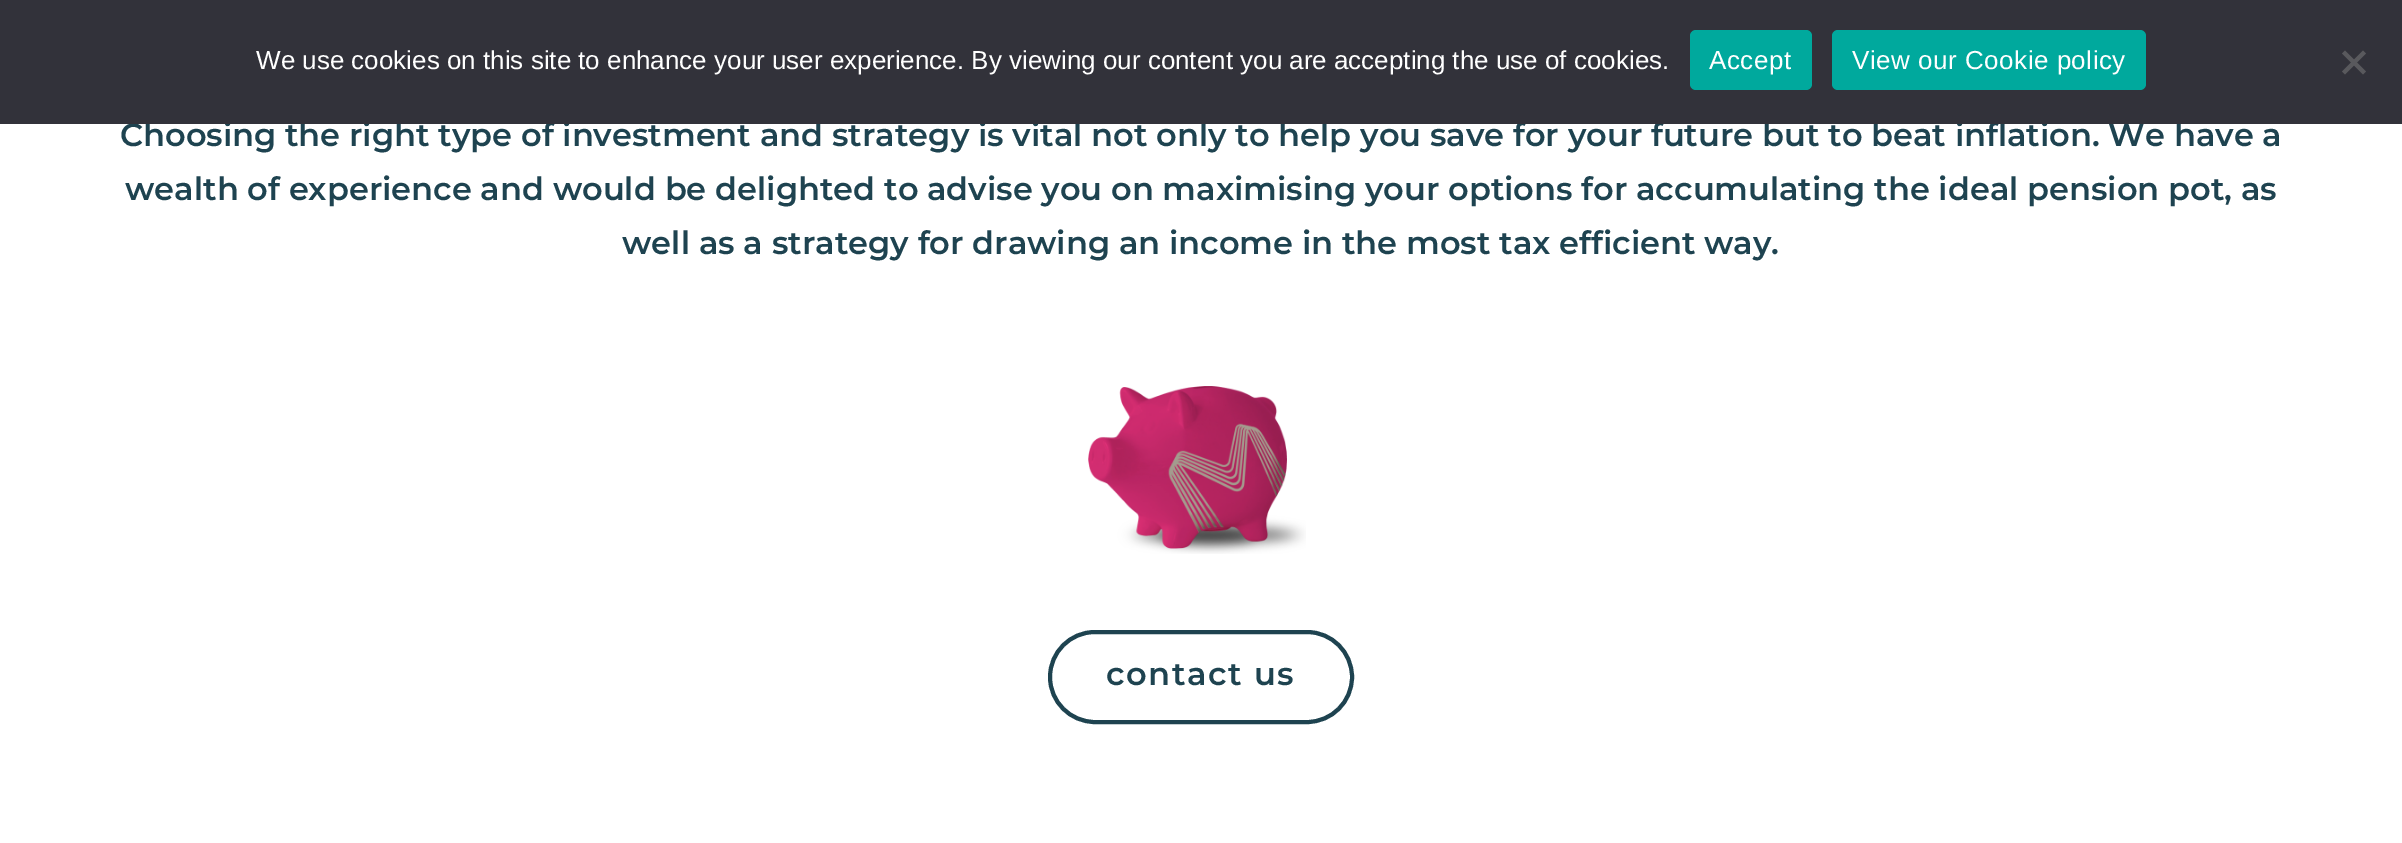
%!PS-Adobe-3.0
%%BoundingBox: 0 0 2402 843
%%LanguageLevel: 3
%%Pages: 1
%%EndComments
%%BeginProlog
/setink { 3 { 255 div 3 1 roll } repeat setrgbcolor } def
/usefont { [ exch dup neg 0 0 3 -1 roll 0 0 ] selectfont } def
/drawtext { setink usefont moveto show } def
/fillbox { setink rectfill } def
/rrect { 5 dict begin { /r /h /w /y /x } { exch def } forall
  x r add y moveto x w add y 2 copy h add r arct x w add y h add x 1 index r arct
  x y h add x y r arct x y 2 copy exch w add exch r arct closepath end } def
/drawimage { 5 dict begin { /h /w /y /x /name } { exch def } forall
  gsave x y translate w h scale
  w h 8 [w 0 0 h 0 0] name (r) file false 3 colorimage grestore end } def
%%EndProlog
%%BeginSetup
<< /PageSize [2402 843] >> setpagedevice
%%EndSetup
%%Page: 1 1
0 843 translate 1 -1 scale
4 setmiterlimit
0 0 2402 843 255 255 255 fillbox
(Choosing the right type of investment and strategy is vital not only to help you save for your future but to beat inflation. We have a) 120 146 /Montserrat-SemiBold 32 30 67 80 drawtext
0 0 2402 124 50 50 58 fillbox
(We use cookies on this site to enhance your user experience. By viewing our content you are accepting the use of cookies.) 256 69 /LiberationSans-Regular 26 255 255 255 drawtext
0 169 157 setink
1690 30 122 60 6 rrect fill
255 255 255 setink
1709 69 moveto 0.5 0 (Accept) ashow
0 169 157 setink
1832 30 314 60 6 rrect fill
255 255 255 setink
1852 69 moveto 0.5 0 (View our Cookie policy) ashow
89 89 93 setink
2363 50.5 moveto 2366 53.5 lineto 2345 74.5 lineto 2342 71.5 lineto closepath fill
2342 53.5 moveto 2345 50.5 lineto 2366 71.5 lineto 2363 74.5 lineto closepath fill
(wealth of experience and would be delighted to advise you on maximising your options for accumulating the ideal pension pot, as) 125 200 /Montserrat-SemiBold 32 30 67 80 drawtext
(well as a strategy for drawing an income in the most tax efficient way.) 622 254 /Montserrat-SemiBold 32 30 67 80 drawtext
(assets/img1.rgb) 1088 386 218 168 drawimage
4 setlinewidth
1050 632 302 90 45 rrect stroke
1106 685 moveto 1.6 0 (contact us) ashow
showpage
%%EOF
